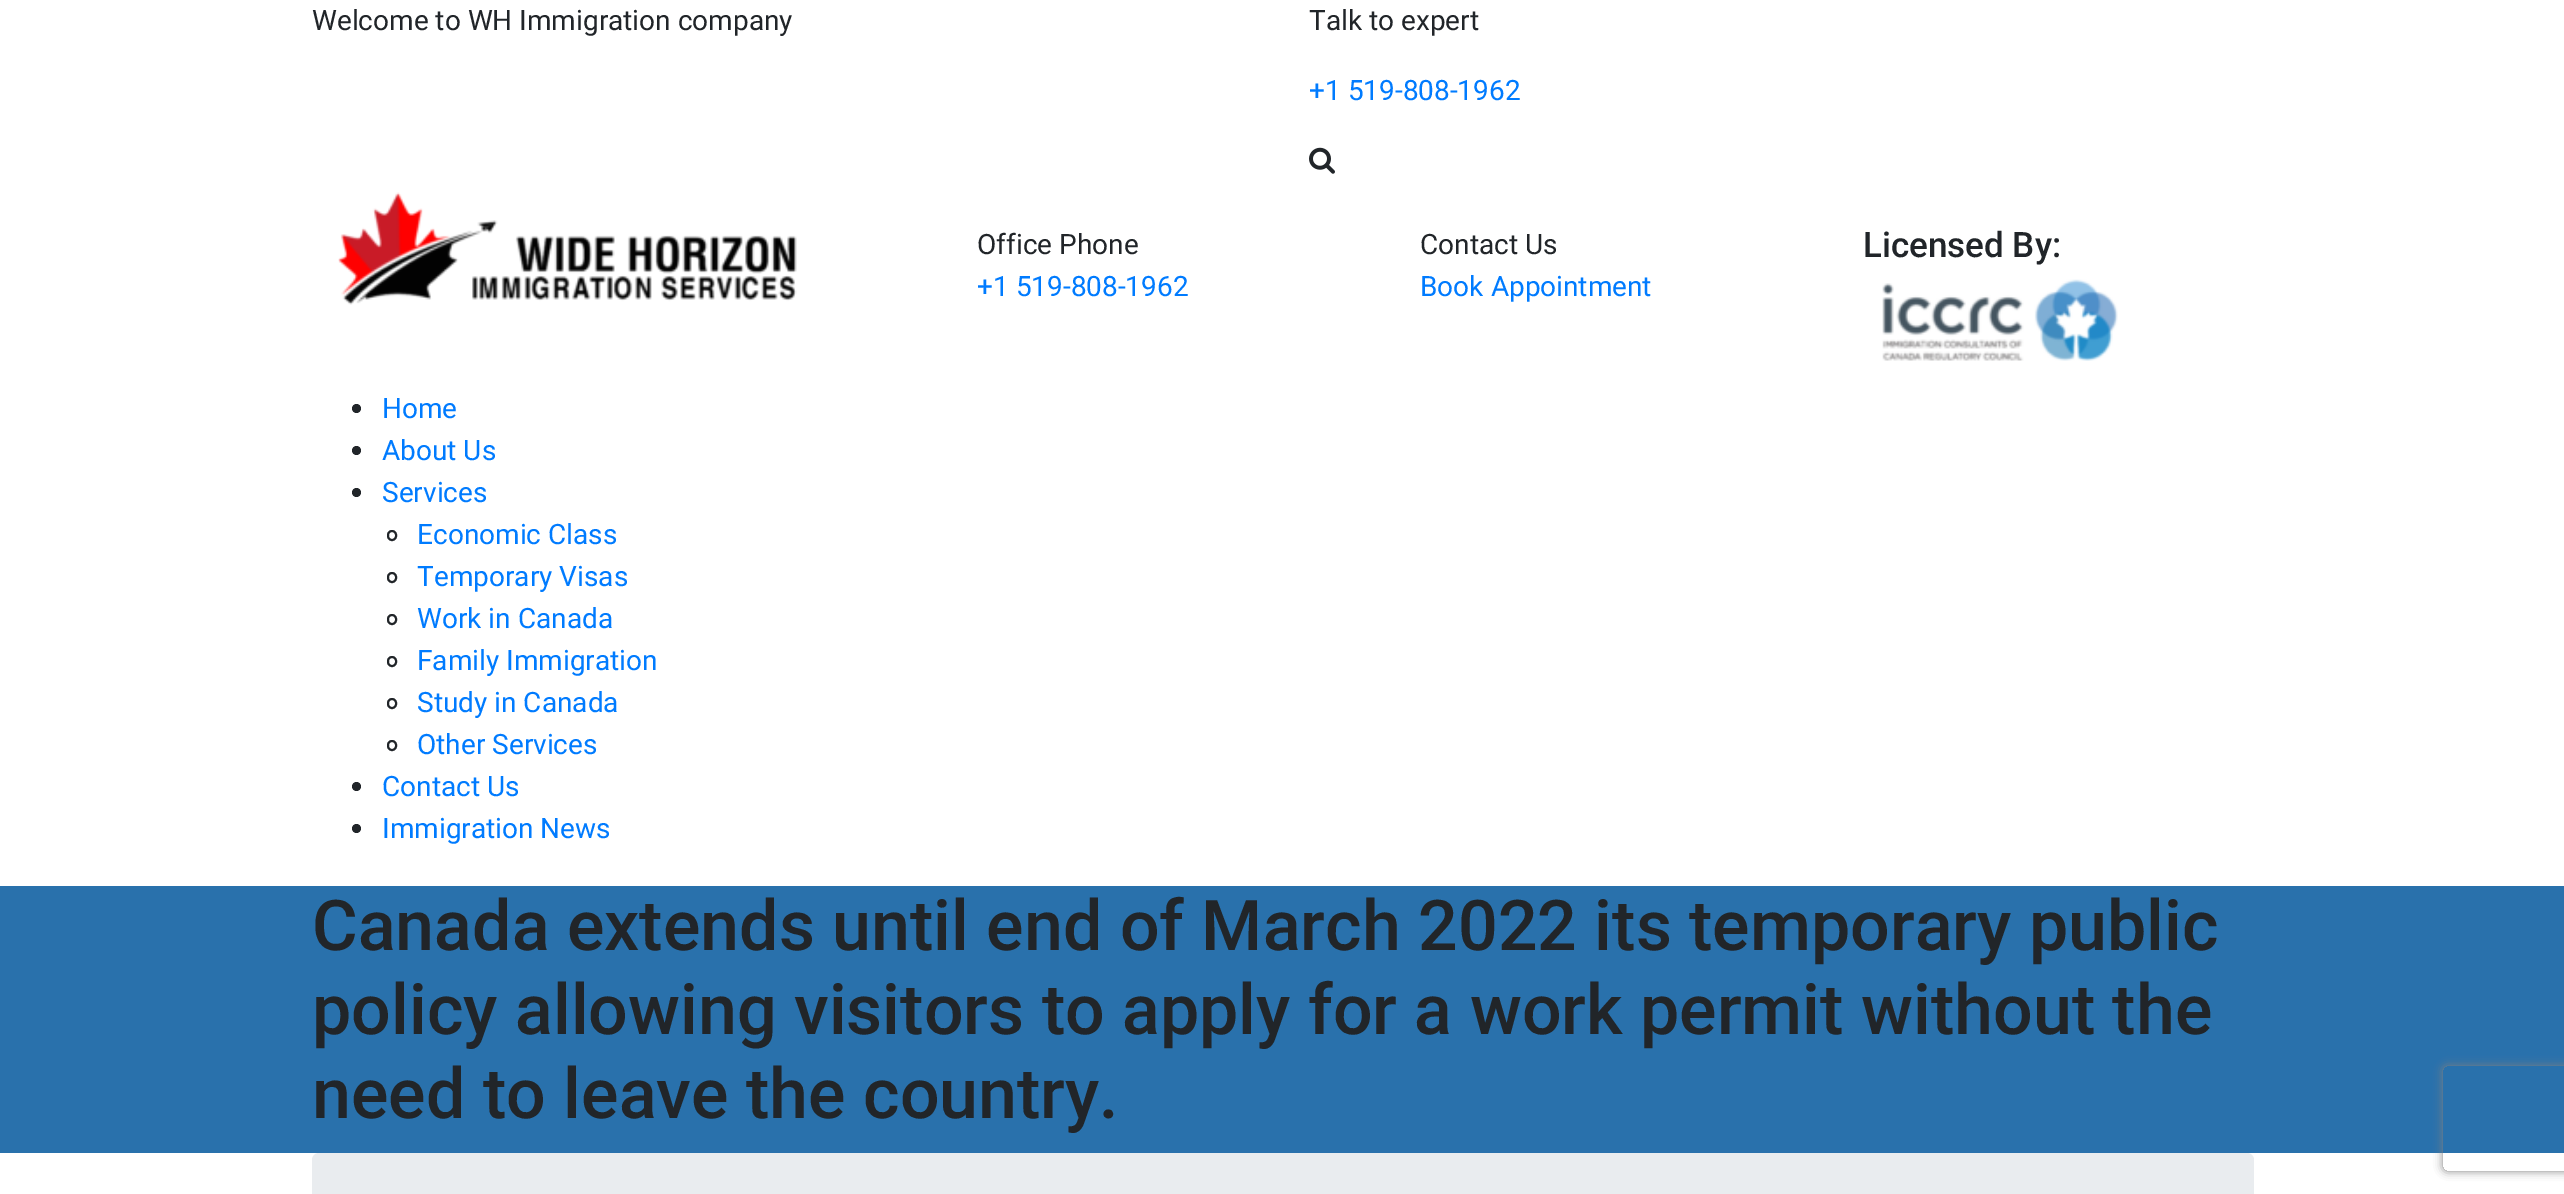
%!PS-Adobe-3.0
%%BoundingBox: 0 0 2564 1194
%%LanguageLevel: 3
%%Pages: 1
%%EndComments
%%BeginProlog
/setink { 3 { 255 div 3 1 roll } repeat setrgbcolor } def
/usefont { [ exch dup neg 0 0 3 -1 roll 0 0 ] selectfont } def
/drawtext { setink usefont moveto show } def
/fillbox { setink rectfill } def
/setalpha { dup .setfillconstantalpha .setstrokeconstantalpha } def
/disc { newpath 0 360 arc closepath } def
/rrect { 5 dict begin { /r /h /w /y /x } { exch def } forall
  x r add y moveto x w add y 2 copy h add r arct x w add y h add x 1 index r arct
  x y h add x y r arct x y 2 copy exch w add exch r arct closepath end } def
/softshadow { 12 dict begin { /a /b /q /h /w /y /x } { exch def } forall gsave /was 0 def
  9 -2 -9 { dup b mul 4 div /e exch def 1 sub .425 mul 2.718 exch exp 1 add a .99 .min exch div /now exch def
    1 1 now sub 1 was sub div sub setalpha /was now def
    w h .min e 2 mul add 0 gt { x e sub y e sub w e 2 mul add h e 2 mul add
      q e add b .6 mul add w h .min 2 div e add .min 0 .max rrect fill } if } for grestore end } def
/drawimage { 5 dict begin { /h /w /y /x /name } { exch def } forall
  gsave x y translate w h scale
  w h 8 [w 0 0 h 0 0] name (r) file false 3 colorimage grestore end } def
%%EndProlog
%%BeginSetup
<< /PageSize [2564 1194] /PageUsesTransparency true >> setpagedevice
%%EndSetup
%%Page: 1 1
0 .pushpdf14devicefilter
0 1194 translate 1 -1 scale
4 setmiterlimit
0 0 2564 1194 255 255 255 fillbox
(Welcome to WH Immigration company) 312 30 /Roboto-Regular 28 33 37 41 drawtext
(Talk to expert) 1309 30 /Roboto-Regular 28 33 37 41 drawtext
(+1 519-808-1962) 1309 100 /Roboto-Regular 28 0 123 255 drawtext
(assets/img1.rgb) 1309 147 26 27 drawimage
(assets/img2.rgb) 338 192 459 113 drawimage
(Office Phone) 977 254 /Roboto-Regular 28 33 37 41 drawtext
(+1 519-808-1962) 977 296 /Roboto-Regular 28 0 123 255 drawtext
(Contact Us) 1420 254 /Roboto-Regular 28 33 37 41 drawtext
(Book Appointment) 1420 296 /Roboto-Regular 28 0 123 255 drawtext
(Licensed By:) 1863 257 /Roboto-Medium 35 33 37 41 drawtext
(assets/img3.rgb) 1882 279 236 82 drawimage
356.5 408.5 4.5 disc fill
(Home) 382 418 /Roboto-Regular 28 0 123 255 drawtext
33 37 41 setink
356.5 450.5 4.5 disc fill
(About Us) 382 460 /Roboto-Regular 28 0 123 255 drawtext
33 37 41 setink
356.5 492.5 4.5 disc fill
(Services) 382 502 /Roboto-Regular 28 0 123 255 drawtext
33 37 41 setink
2 setlinewidth
388 531 8 9 4 rrect stroke
(Economic Class) 417 544 /Roboto-Regular 28 0 123 255 drawtext
33 37 41 setink
388 573 8 9 4 rrect stroke
(Temporary Visas) 417 586 /Roboto-Regular 28 0 123 255 drawtext
33 37 41 setink
388 615 8 9 4 rrect stroke
(Work in Canada) 417 628 /Roboto-Regular 28 0 123 255 drawtext
33 37 41 setink
388 657 8 9 4 rrect stroke
(Family Immigration) 417 670 /Roboto-Regular 28 0 123 255 drawtext
33 37 41 setink
388 699 8 9 4 rrect stroke
(Study in Canada) 417 712 /Roboto-Regular 28 0 123 255 drawtext
33 37 41 setink
388 741 8 9 4 rrect stroke
(Other Services) 417 754 /Roboto-Regular 28 0 123 255 drawtext
33 37 41 setink
356.5 786.5 4.5 disc fill
(Contact Us) 382 796 /Roboto-Regular 28 0 123 255 drawtext
33 37 41 setink
356.5 828.5 4.5 disc fill
(Immigration News) 382 838 /Roboto-Regular 28 0 123 255 drawtext
0 886 2564 267 41 113 172 fillbox
(Canada extends until end of March 2022 its temporary public) 312 950 /Roboto-Medium 70 33 37 41 drawtext
(policy allowing visitors to apply for a work permit without the) 312 1034 /Roboto-Medium 70 33 37 41 drawtext
(need to leave the country.) 312 1118 /Roboto-Medium 70 33 37 41 drawtext
233 236 239 setink
312 1153 1942 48 7 rrect fill
gsave
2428 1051 moveto 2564 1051 lineto 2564 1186 lineto 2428 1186 lineto closepath 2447 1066 moveto 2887 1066 lineto 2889 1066 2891 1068 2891 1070 curveto 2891 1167 lineto 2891 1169 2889 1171 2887 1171 curveto 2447 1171 lineto 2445 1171 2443 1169 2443 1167 curveto 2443 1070 lineto 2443 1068 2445 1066 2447 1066 curveto closepath eoclip newpath
128 128 128 setink
2443 1066 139 105 4 4.5 1 softshadow
grestore
.poppdf14devicefilter showpage
%%EOF
